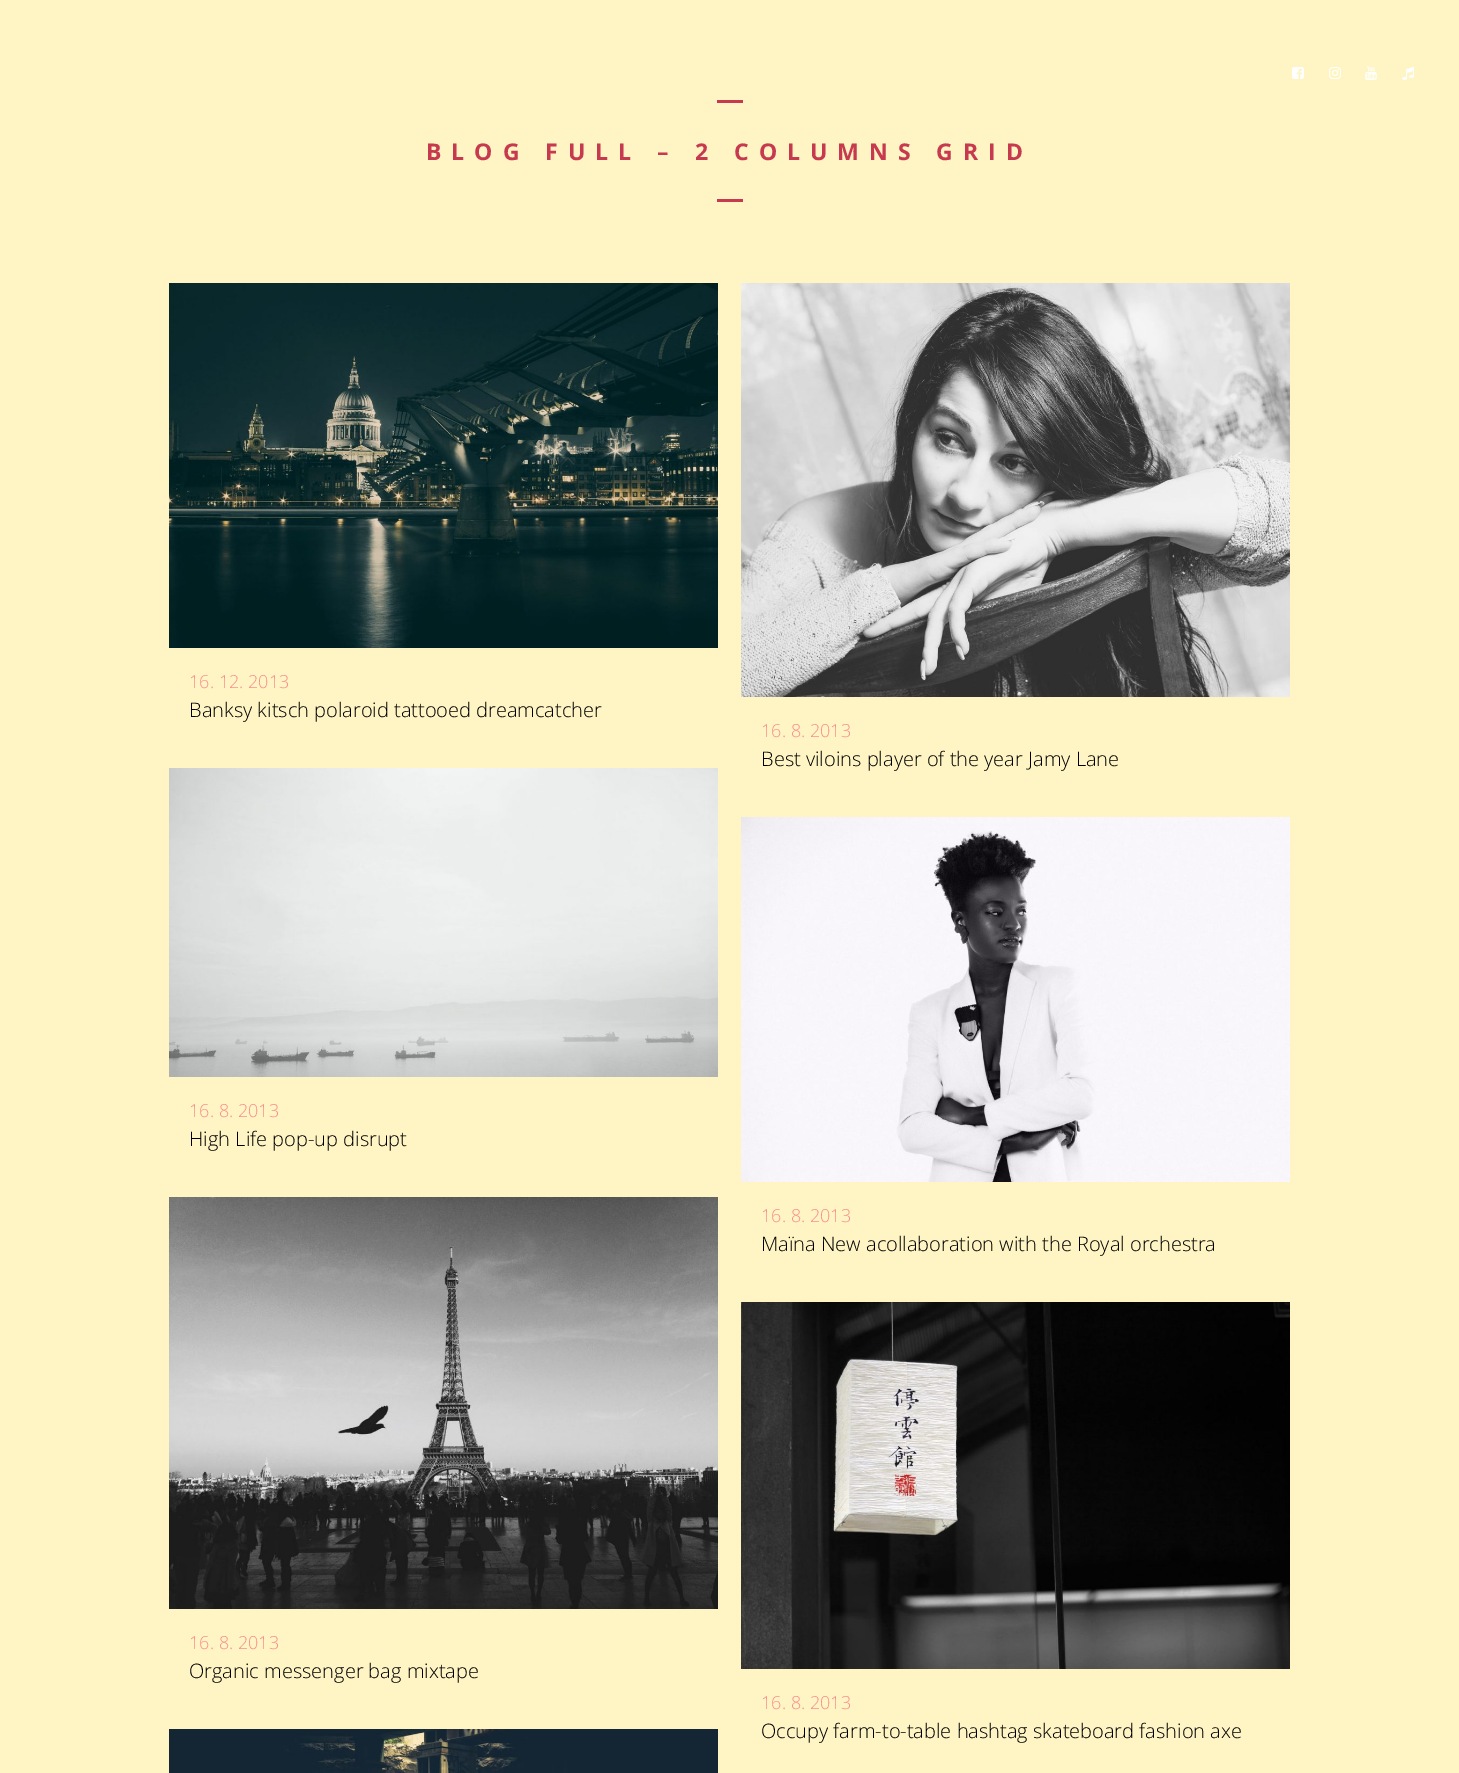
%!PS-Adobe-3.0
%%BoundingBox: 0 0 1459 1773
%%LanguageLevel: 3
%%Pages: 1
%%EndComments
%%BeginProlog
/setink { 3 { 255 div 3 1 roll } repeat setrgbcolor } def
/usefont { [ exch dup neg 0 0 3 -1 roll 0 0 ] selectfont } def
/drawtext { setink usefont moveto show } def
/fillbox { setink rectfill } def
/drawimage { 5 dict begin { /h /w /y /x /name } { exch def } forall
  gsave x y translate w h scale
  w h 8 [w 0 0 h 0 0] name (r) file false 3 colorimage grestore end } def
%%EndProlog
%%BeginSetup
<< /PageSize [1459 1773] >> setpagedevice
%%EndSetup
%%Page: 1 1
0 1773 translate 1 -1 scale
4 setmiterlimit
0 0 1459 1773 255 245 196 fillbox
(assets/img1.rgb) 1292 67 12 12 drawimage
(assets/img2.rgb) 1329 67 12 12 drawimage
(assets/img3.rgb) 1365 66 12 14 drawimage
(assets/img4.rgb) 1402 67 12 13 drawimage
717 100 26 3 199 57 79 fillbox
/OpenSans-Bold 23 usefont
426 160 moveto 10 0 (BLOG FULL – 2 COLUMNS GRID) ashow
717 199 26 3 199 57 79 fillbox
(assets/img5.rgb) 169 283 549 365 drawimage
(16. 12. 2013) 189 688 /OpenSans-Light 18 248 141 141 drawtext
(Banksy kitsch polaroid tattooed dreamcatcher) 189 717 /OpenSans-Light 20 0 0 0 drawtext
(assets/img6.rgb) 741 283 549 414 drawimage
(16. 8. 2013) 761 737 /OpenSans-Light 18 248 141 141 drawtext
(Best viloins player of the year Jamy Lane) 761 766 /OpenSans-Light 20 0 0 0 drawtext
(assets/img7.rgb) 169 768 549 309 drawimage
(16. 8. 2013) 189 1117 /OpenSans-Light 18 248 141 141 drawtext
(High Life pop-up disrupt) 189 1146 /OpenSans-Light 20 0 0 0 drawtext
(assets/img8.rgb) 741 817 549 365 drawimage
(16. 8. 2013) 761 1222 /OpenSans-Light 18 248 141 141 drawtext
(Maïna New acollaboration with the Royal orchestra) 761 1251 /OpenSans-Light 20 0 0 0 drawtext
(assets/img9.rgb) 169 1197 549 412 drawimage
(16. 8. 2013) 189 1649 /OpenSans-Light 18 248 141 141 drawtext
(Organic messenger bag mixtape) 189 1678 /OpenSans-Light 20 0 0 0 drawtext
(assets/img10.rgb) 741 1302 549 367 drawimage
(16. 8. 2013) 761 1709 /OpenSans-Light 18 248 141 141 drawtext
(Occupy farm-to-table hashtag skateboard fashion axe) 761 1738 /OpenSans-Light 20 0 0 0 drawtext
(assets/img11.rgb) 169 1729 549 44 drawimage
showpage
%%EOF
